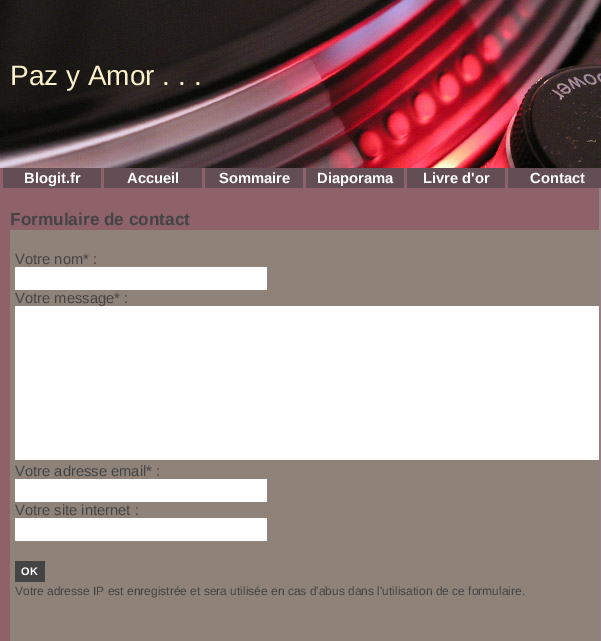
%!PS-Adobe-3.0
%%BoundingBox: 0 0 601 641
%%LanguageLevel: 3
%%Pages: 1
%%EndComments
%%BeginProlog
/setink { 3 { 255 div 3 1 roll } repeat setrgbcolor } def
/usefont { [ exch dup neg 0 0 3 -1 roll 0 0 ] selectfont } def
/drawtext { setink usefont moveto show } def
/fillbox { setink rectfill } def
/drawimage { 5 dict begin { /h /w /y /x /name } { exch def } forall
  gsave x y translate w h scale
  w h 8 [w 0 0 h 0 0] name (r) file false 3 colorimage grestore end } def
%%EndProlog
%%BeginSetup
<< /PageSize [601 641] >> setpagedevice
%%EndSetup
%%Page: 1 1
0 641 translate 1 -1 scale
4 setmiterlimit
0 0 601 641 150 130 134 fillbox
0 188 599 453 143 98 105 fillbox
(assets/img1.rgb) 0 0 601 168 drawimage
(Paz y Amor . . .) 10 85 /LiberationSans-Regular 28 250 241 202 drawtext
101 168 3 20 143 98 105 fillbox
0 168 3 20 143 98 105 fillbox
3 168 98 20 99 78 85 fillbox
(Blogit.fr) 24 183 /LiberationSans-Bold 14.75 255 255 255 drawtext
202 168 3 20 143 98 105 fillbox
104 168 98 20 99 78 85 fillbox
(Accueil) 127 183 /LiberationSans-Bold 14.75 255 255 255 drawtext
303 168 3 20 143 98 105 fillbox
205 168 98 20 99 78 85 fillbox
(Sommaire) 219 183 /LiberationSans-Bold 14.75 255 255 255 drawtext
404 168 3 20 143 98 105 fillbox
306 168 98 20 99 78 85 fillbox
(Diaporama) 317 183 /LiberationSans-Bold 14.75 255 255 255 drawtext
505 168 3 20 143 98 105 fillbox
407 168 98 20 99 78 85 fillbox
(Livre d'or) 423 183 /LiberationSans-Bold 14.75 255 255 255 drawtext
508 168 93 20 99 78 85 fillbox
(Contact) 530 183 /LiberationSans-Bold 14.75 255 255 255 drawtext
(Formulaire de contact) 10 225 /LiberationSans-Bold 17.25 68 68 68 drawtext
10 230 590 411 142 130 121 fillbox
(Votre nom* :) 15 264 /LiberationSans-Regular 14.75 68 68 68 drawtext
15 267 252 23 255 255 255 fillbox
(Votre message* :) 15 303 /LiberationSans-Regular 14.75 68 68 68 drawtext
15 306 584 154 255 255 255 fillbox
(Votre adresse email* :) 15 476 /LiberationSans-Regular 14.75 68 68 68 drawtext
15 479 252 23 255 255 255 fillbox
(Votre site internet :) 15 515 /LiberationSans-Regular 14.75 68 68 68 drawtext
15 518 252 23 255 255 255 fillbox
15 561 30 21 68 68 68 fillbox
(OK) 21 575 /LiberationSans-Bold 11 255 255 255 drawtext
(Votre adresse IP est enregistrée et sera utilisée en cas d'abus dans l'utilisation de ce formulaire.) 15 595 /LiberationSans-Regular 12 68 68 68 drawtext
showpage
%%EOF
